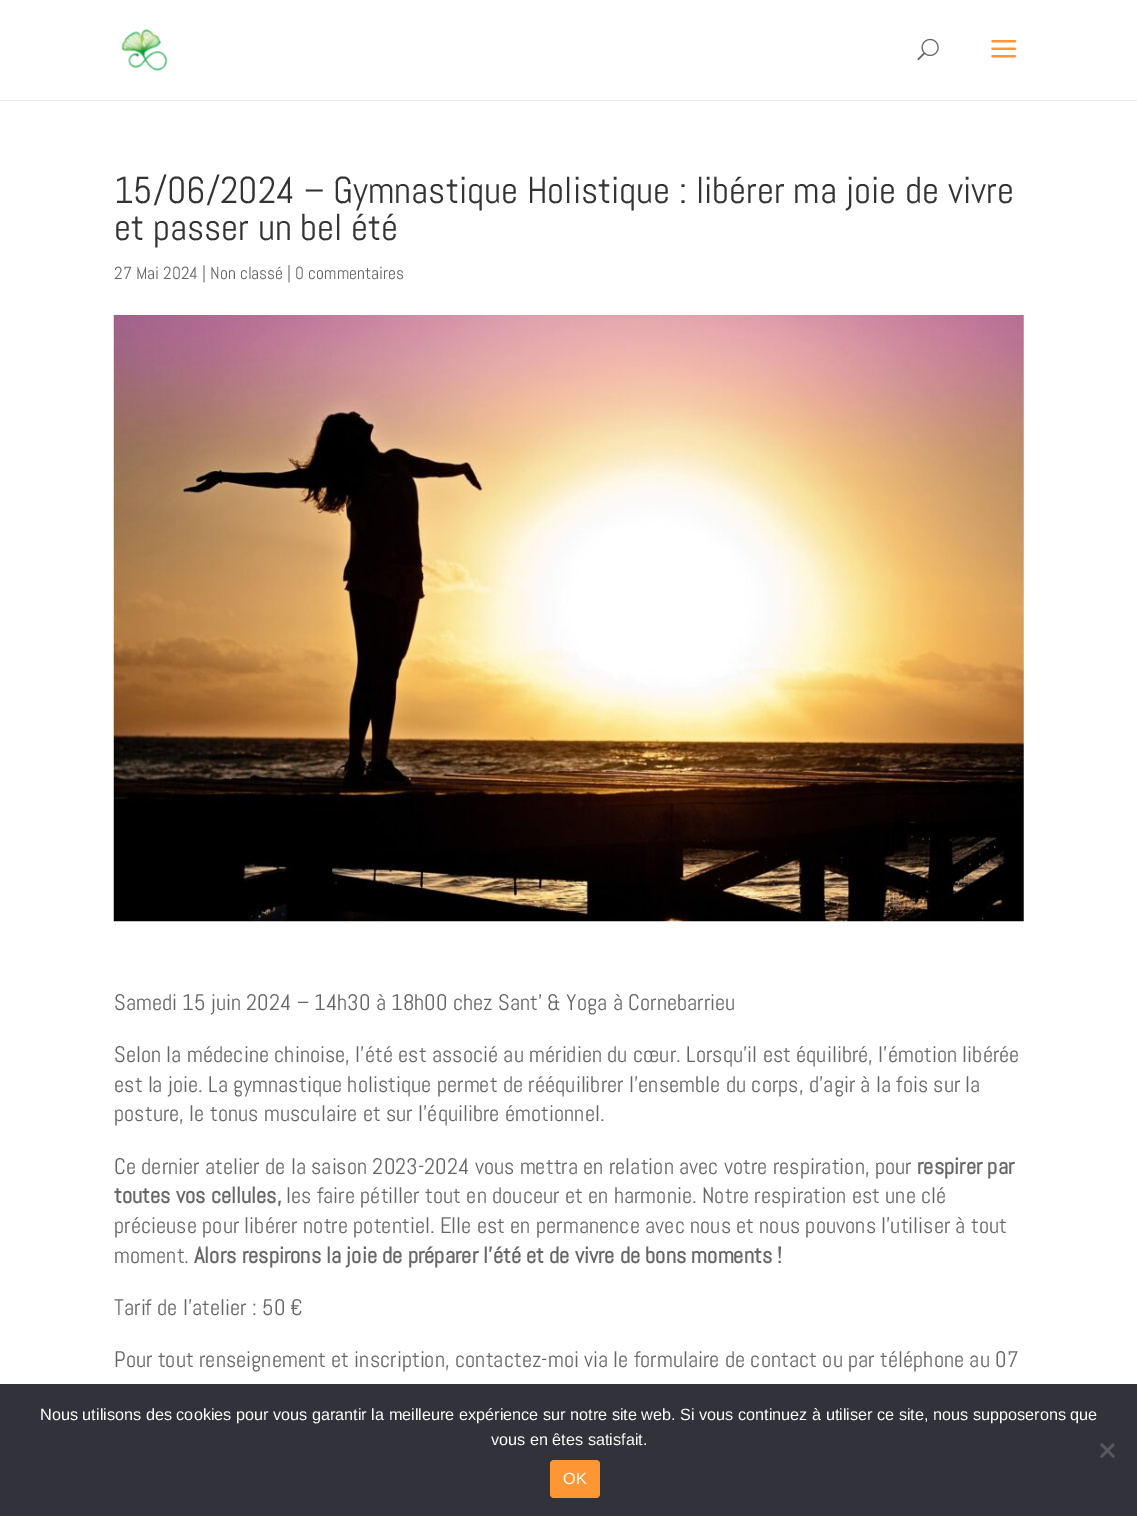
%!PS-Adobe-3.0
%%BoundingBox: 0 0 1137 1516
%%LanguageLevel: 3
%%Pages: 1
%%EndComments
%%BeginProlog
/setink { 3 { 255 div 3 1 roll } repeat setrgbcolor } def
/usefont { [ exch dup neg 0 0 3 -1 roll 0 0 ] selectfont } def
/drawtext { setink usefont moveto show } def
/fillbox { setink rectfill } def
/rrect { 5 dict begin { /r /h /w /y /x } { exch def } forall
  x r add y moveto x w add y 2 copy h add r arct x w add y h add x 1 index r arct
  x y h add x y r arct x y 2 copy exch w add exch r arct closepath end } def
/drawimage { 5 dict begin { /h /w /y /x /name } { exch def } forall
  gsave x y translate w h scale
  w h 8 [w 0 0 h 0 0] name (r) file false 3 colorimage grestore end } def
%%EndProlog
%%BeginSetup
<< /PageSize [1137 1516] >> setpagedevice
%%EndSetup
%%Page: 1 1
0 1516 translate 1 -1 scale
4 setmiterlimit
0 0 1137 1516 255 255 255 fillbox
230 230 230 setink
0 100 moveto 0 101 lineto 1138 101 lineto 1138 1 lineto 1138 100 lineto closepath fill
(assets/img1.rgb) 121 29 47 42 drawimage
(assets/img2.rgb) 917 38 22 23 drawimage
(assets/img3.rgb) 991 40 26 18 drawimage
(15/06/2024 – Gymnastique Holistique : libérer ma joie de vivre) 114 203 /Abel-Regular 37.5 51 51 51 drawtext
(et passer un bel été) 114 240 /Abel-Regular 37.5 51 51 51 drawtext
(27 Mai 2024 | Non classé | 0 commentaires) 114 279 /Abel-Regular 17.5 102 102 102 drawtext
(assets/img4.rgb) 113 315 911 607 drawimage
(Samedi 15 juin 2024 – 14h30 à 18h00 chez Sant’ & Yoga à Cornebarrieu) 114 1010 /Abel-Regular 22.5 102 102 102 drawtext
(Selon la médecine chinoise, l’été est associé au méridien du cœur. Lorsqu’il est équilibré, l’émotion libérée) 114 1062 /Abel-Regular 22.5 102 102 102 drawtext
(est la joie. La gymnastique holistique permet de rééquilibrer l’ensemble du corps, d’agir à la fois sur la) 114 1092 /Abel-Regular 22.5 102 102 102 drawtext
(posture, le tonus musculaire et sur l’équilibre émotionnel.) 114 1121 /Abel-Regular 22.5 102 102 102 drawtext
(Ce dernier atelier de la saison 2023-2024 vous mettra en relation avec votre respiration, pour) 114 1174 /Abel-Regular 22.5 102 102 102 drawtext
(respirer par) 917 1174 /Abel-Bold 22.5 102 102 102 drawtext
(toutes vos cellules,) 114 1203 /Abel-Bold 22.5 102 102 102 drawtext
(les faire pétiller tout en douceur et en harmonie. Notre respiration est une clé) 286 1203 /Abel-Regular 22.5 102 102 102 drawtext
(précieuse pour libérer notre potentiel. Elle est en permanence avec nous et nous pouvons l’utiliser à tout) 114 1233 /Abel-Regular 22.5 102 102 102 drawtext
(moment.) 114 1263 /Abel-Regular 22.5 102 102 102 drawtext
(Alors respirons la joie de préparer l’été et de vivre de bons moments !) 194 1263 /Abel-Bold 22.5 102 102 102 drawtext
(Tarif de l’atelier : 50 €) 114 1315 /Abel-Regular 22.5 102 102 102 drawtext
(Pour tout renseignement et inscription, contactez-moi via le formulaire de contact ou par téléphone au 07) 114 1367 /Abel-Regular 22.5 102 102 102 drawtext
0 1384 1137 132 50 50 58 fillbox
(Nous utilisons des cookies pour vous garantir la meilleure expérience sur notre site web. Si vous continuez à utiliser ce site, nous supposerons que) 40 1420 /LiberationSans-Regular 16.25 255 255 255 drawtext
(vous en êtes satisfait.) 491 1445 /LiberationSans-Regular 16.25 255 255 255 drawtext
89 89 93 setink
1113 1443 moveto 1115 1445 lineto 1102 1458 lineto 1100 1456.5 lineto closepath fill
1100 1445 moveto 1102 1443 lineto 1115 1456.5 lineto 1113 1458 lineto closepath fill
255 150 54 setink
550 1460 50 38 4 rrect fill
(OK) 563 1484 /LiberationSans-Regular 16.25 255 255 255 drawtext
showpage
%%EOF
